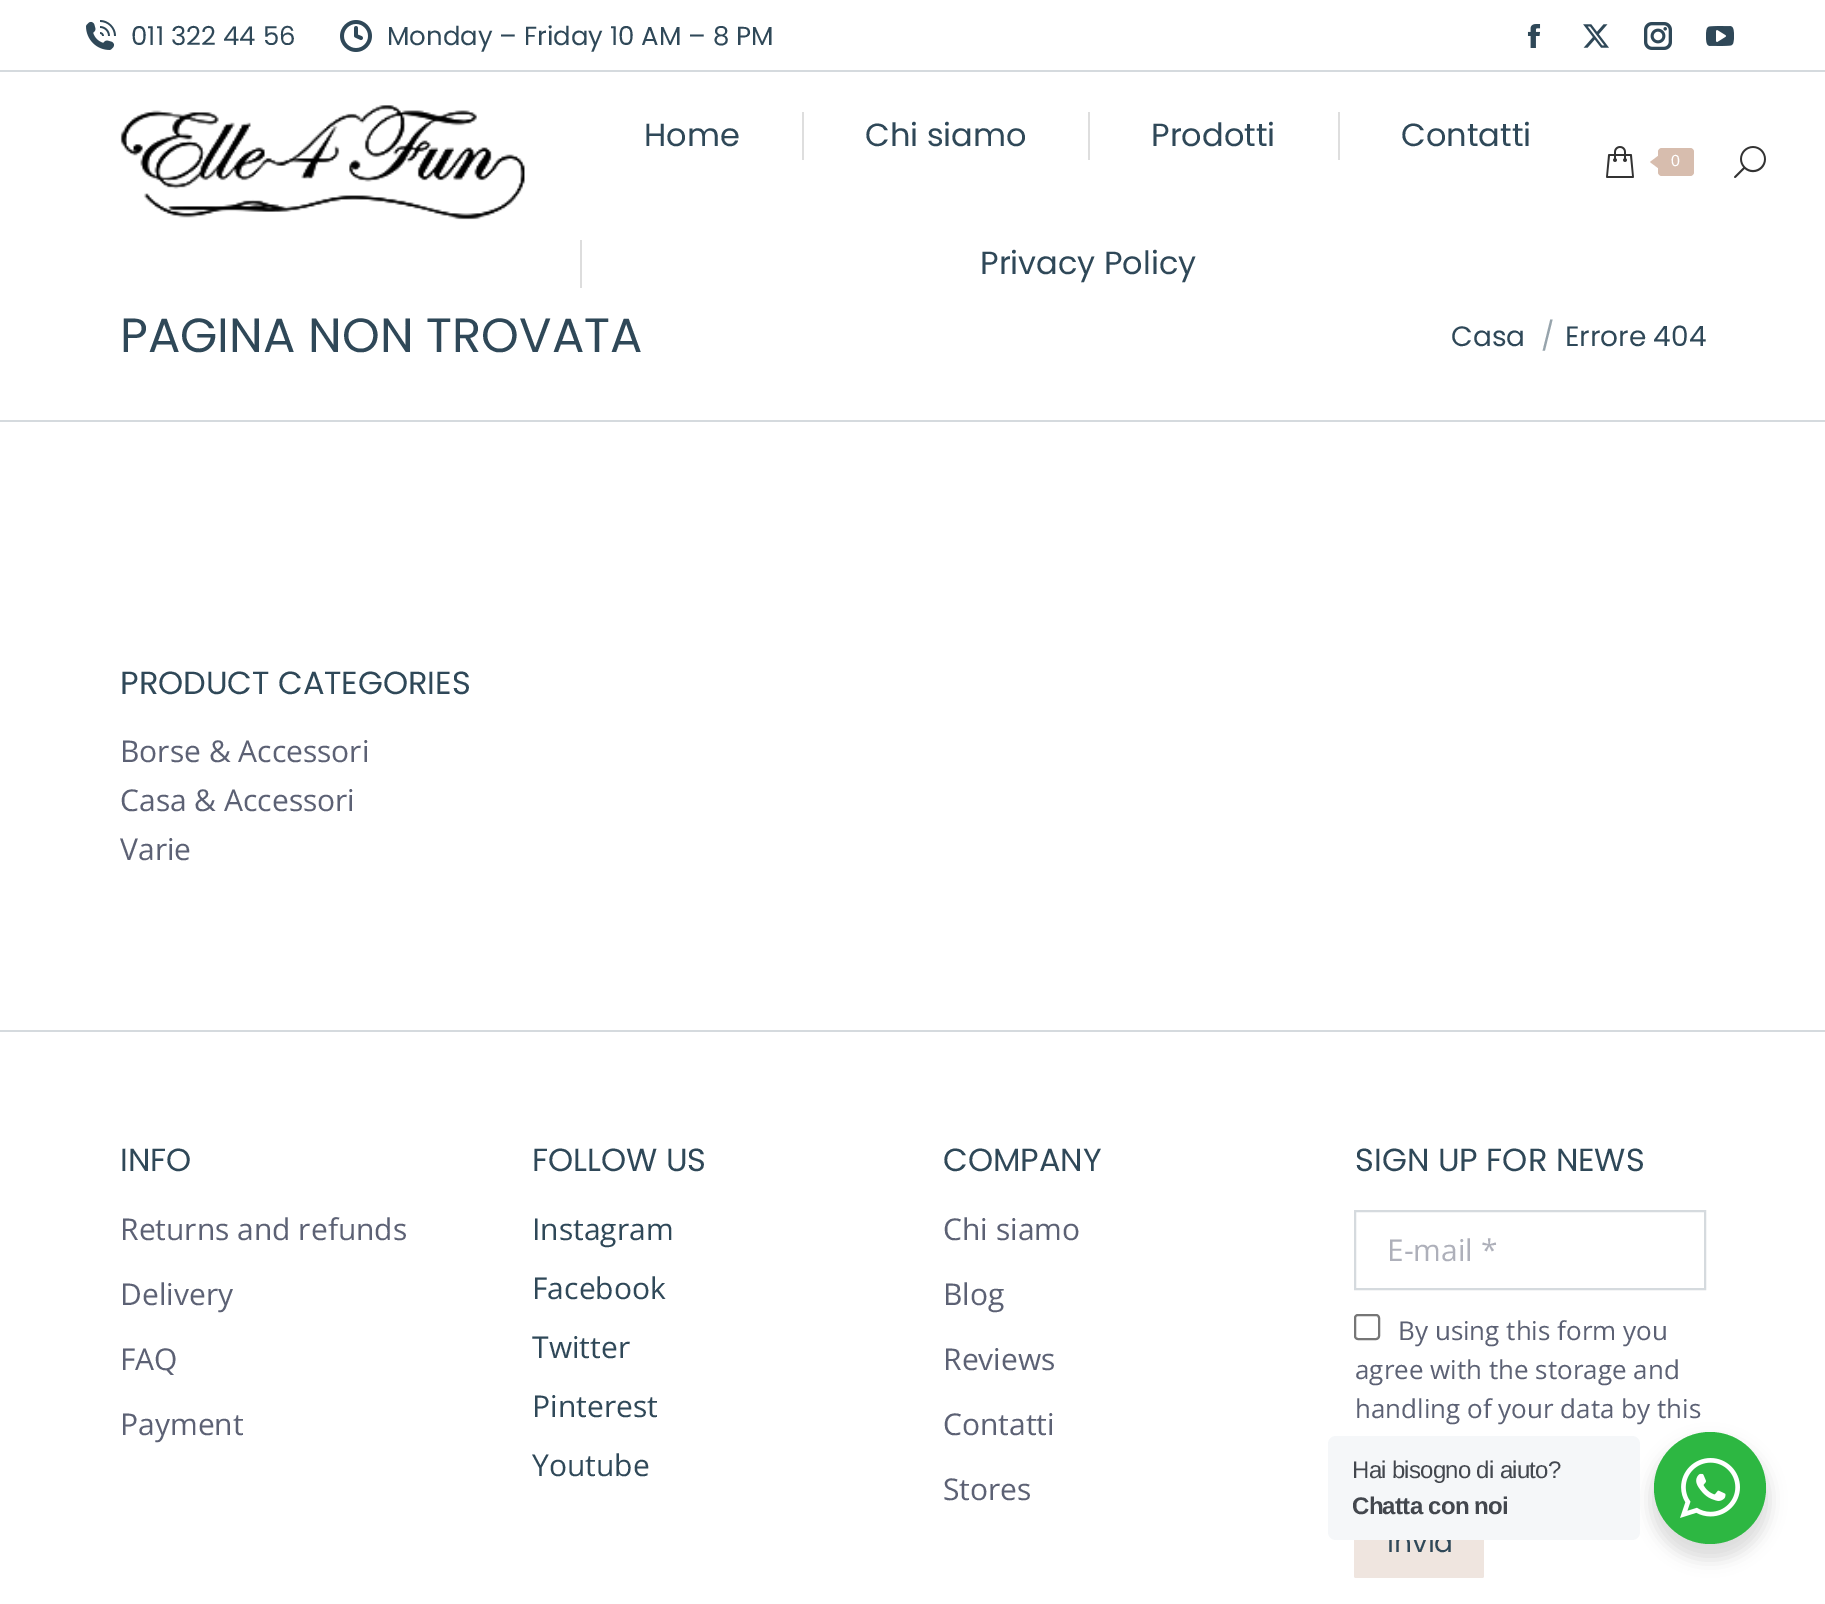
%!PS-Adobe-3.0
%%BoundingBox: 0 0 1825 1604
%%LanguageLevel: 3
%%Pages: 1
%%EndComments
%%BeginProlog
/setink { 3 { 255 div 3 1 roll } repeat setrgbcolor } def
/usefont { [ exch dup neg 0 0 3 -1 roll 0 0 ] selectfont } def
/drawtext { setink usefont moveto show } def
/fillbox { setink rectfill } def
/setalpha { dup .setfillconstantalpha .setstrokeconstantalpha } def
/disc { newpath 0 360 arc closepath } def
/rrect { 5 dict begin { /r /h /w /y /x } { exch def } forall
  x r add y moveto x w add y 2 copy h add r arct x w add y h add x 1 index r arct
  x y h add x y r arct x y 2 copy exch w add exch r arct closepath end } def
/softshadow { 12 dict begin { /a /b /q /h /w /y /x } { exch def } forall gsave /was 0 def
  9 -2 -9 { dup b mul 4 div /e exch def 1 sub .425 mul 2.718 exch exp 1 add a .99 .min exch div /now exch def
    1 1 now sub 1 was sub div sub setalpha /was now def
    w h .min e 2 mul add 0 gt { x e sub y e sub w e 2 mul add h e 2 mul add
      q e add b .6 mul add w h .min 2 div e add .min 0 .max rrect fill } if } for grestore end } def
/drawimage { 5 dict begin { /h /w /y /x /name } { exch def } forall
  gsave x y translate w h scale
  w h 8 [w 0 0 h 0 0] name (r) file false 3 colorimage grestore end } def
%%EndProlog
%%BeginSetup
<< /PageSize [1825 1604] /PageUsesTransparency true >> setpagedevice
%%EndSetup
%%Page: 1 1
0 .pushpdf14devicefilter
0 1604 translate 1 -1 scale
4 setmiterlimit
0 0 1825 1604 255 255 255 fillbox
(assets/img1.rgb) 86 20 30 30 drawimage
(011 322 44 56) 131 45 /Poppins-Regular 26 47 72 88 drawtext
(assets/img2.rgb) 340 20 32 32 drawimage
(Monday – Friday 10 AM – 8 PM) 387 45 /Poppins-Regular 26 47 72 88 drawtext
(assets/img3.rgb) 1527 24 14 24 drawimage
(assets/img4.rgb) 1583 24 26 24 drawimage
(assets/img5.rgb) 1644 22 28 28 drawimage
(assets/img6.rgb) 1706 26 28 20 drawimage
0 70 1825 2 213 218 222 fillbox
(assets/img7.rgb) 120 105 405 115 drawimage
(Home) 644 146 /Poppins-Regular 32 47 72 88 drawtext
802 112 2 48 222 222 222 fillbox
(Chi siamo) 865 146 /Poppins-Regular 32 47 72 88 drawtext
1088 112 2 48 222 222 222 fillbox
(Prodotti) 1151 146 /Poppins-Regular 32 47 72 88 drawtext
1338 112 2 48 222 222 222 fillbox
(Contatti) 1401 146 /Poppins-Regular 32 47 72 88 drawtext
0.14 setalpha
580 240 2 48 17 17 17 fillbox
1 setalpha
(Privacy Policy) 980 274 /Poppins-Regular 32 47 72 88 drawtext
(assets/img8.rgb) 1606 146 28 32 drawimage
215 189 174 setink
1658 148 36 28 4 rrect fill
1658 156 moveto 1658 168 lineto 1650 162 lineto closepath fill
(0) 1671 166 /LiberationSans-Regular 16 255 255 255 drawtext
(assets/img9.rgb) 1734 146 32 32 drawimage
0 420 1825 2 213 218 222 fillbox
(PAGINA NON TROVATA) 120 352 /Poppins-Regular 48 47 72 88 drawtext
(Casa) 1451 346 /Poppins-Regular 28 47 72 88 drawtext
(/) 1541 346 /Poppins-Regular 28 151 164 172 drawtext
(Errore 404) 1565 346 /Poppins-Regular 28 47 72 88 drawtext
(PRODUCT CATEGORIES) 120 694 /Poppins-Regular 32 47 72 88 drawtext
(Borse & Accessori) 120 762 /OpenSans-Regular 30 92 97 116 drawtext
(Casa & Accessori) 120 811 /OpenSans-Regular 30 92 97 116 drawtext
(Varie) 120 860 /OpenSans-Regular 30 92 97 116 drawtext
0 1030 1825 2 213 218 222 fillbox
(INFO) 120 1171 /Poppins-Regular 32 47 72 88 drawtext
(Returns and refunds) 120 1240 /OpenSans-Regular 30 92 97 116 drawtext
(Delivery) 120 1305 /OpenSans-Regular 30 92 97 116 drawtext
(FAQ) 120 1370 /OpenSans-Regular 30 92 97 116 drawtext
(Payment) 120 1435 /OpenSans-Regular 30 92 97 116 drawtext
(FOLLOW US) 532 1171 /Poppins-Regular 32 47 72 88 drawtext
(Instagram) 532 1240 /OpenSans-Regular 30 47 72 88 drawtext
(Facebook) 532 1299 /OpenSans-Regular 30 47 72 88 drawtext
(Twitter) 532 1358 /OpenSans-Regular 30 47 72 88 drawtext
(Pinterest) 532 1417 /OpenSans-Regular 30 47 72 88 drawtext
(Youtube) 532 1476 /OpenSans-Regular 30 47 72 88 drawtext
(COMPANY) 943 1171 /Poppins-Regular 32 47 72 88 drawtext
(Chi siamo) 943 1240 /OpenSans-Regular 30 92 97 116 drawtext
(Blog) 943 1305 /OpenSans-Regular 30 92 97 116 drawtext
(Reviews) 943 1370 /OpenSans-Regular 30 92 97 116 drawtext
(Contatti) 943 1435 /OpenSans-Regular 30 92 97 116 drawtext
(Stores) 943 1500 /OpenSans-Regular 30 92 97 116 drawtext
(SIGN UP FOR NEWS) 1355 1171 /Poppins-Regular 32 47 72 88 drawtext
213 218 222 setink
2 setlinewidth
1355 1211 350 78 rectstroke
(E-mail *) 1387 1261 /OpenSans-Regular 30 174 176 186 drawtext
118 118 118 setink
1355 1315 24 24 3 rrect stroke
(By using this form you) 1398 1340 /OpenSans-Regular 26 92 97 116 drawtext
(agree with the storage and) 1355 1379 /OpenSans-Regular 26 92 97 116 drawtext
(handling of your data by this) 1355 1418 /OpenSans-Regular 26 92 97 116 drawtext
239 229 223 setink
1354 1506 130 72 2 rrect fill
(Invia) 1387 1552 /Poppins-Regular 28 47 72 88 drawtext
0 0 0 setink
1650 1440 120 120 60 8 0.14 softshadow
245 247 249 setink
1328 1436 312 104 8 rrect fill
/LiberationSans-Regular 24 usefont
67 71 78 setink
1352 1478 moveto -0.75 0 (Hai bisogno di aiuto?) ashow
/LiberationSans-Bold 24 usefont
1352 1514 moveto -0.75 0 (Chatta con noi) ashow
45 183 66 setink
1710 1488 56 disc fill
(assets/img10.rgb) 1680 1458 60 60 drawimage
.poppdf14devicefilter showpage
%%EOF
